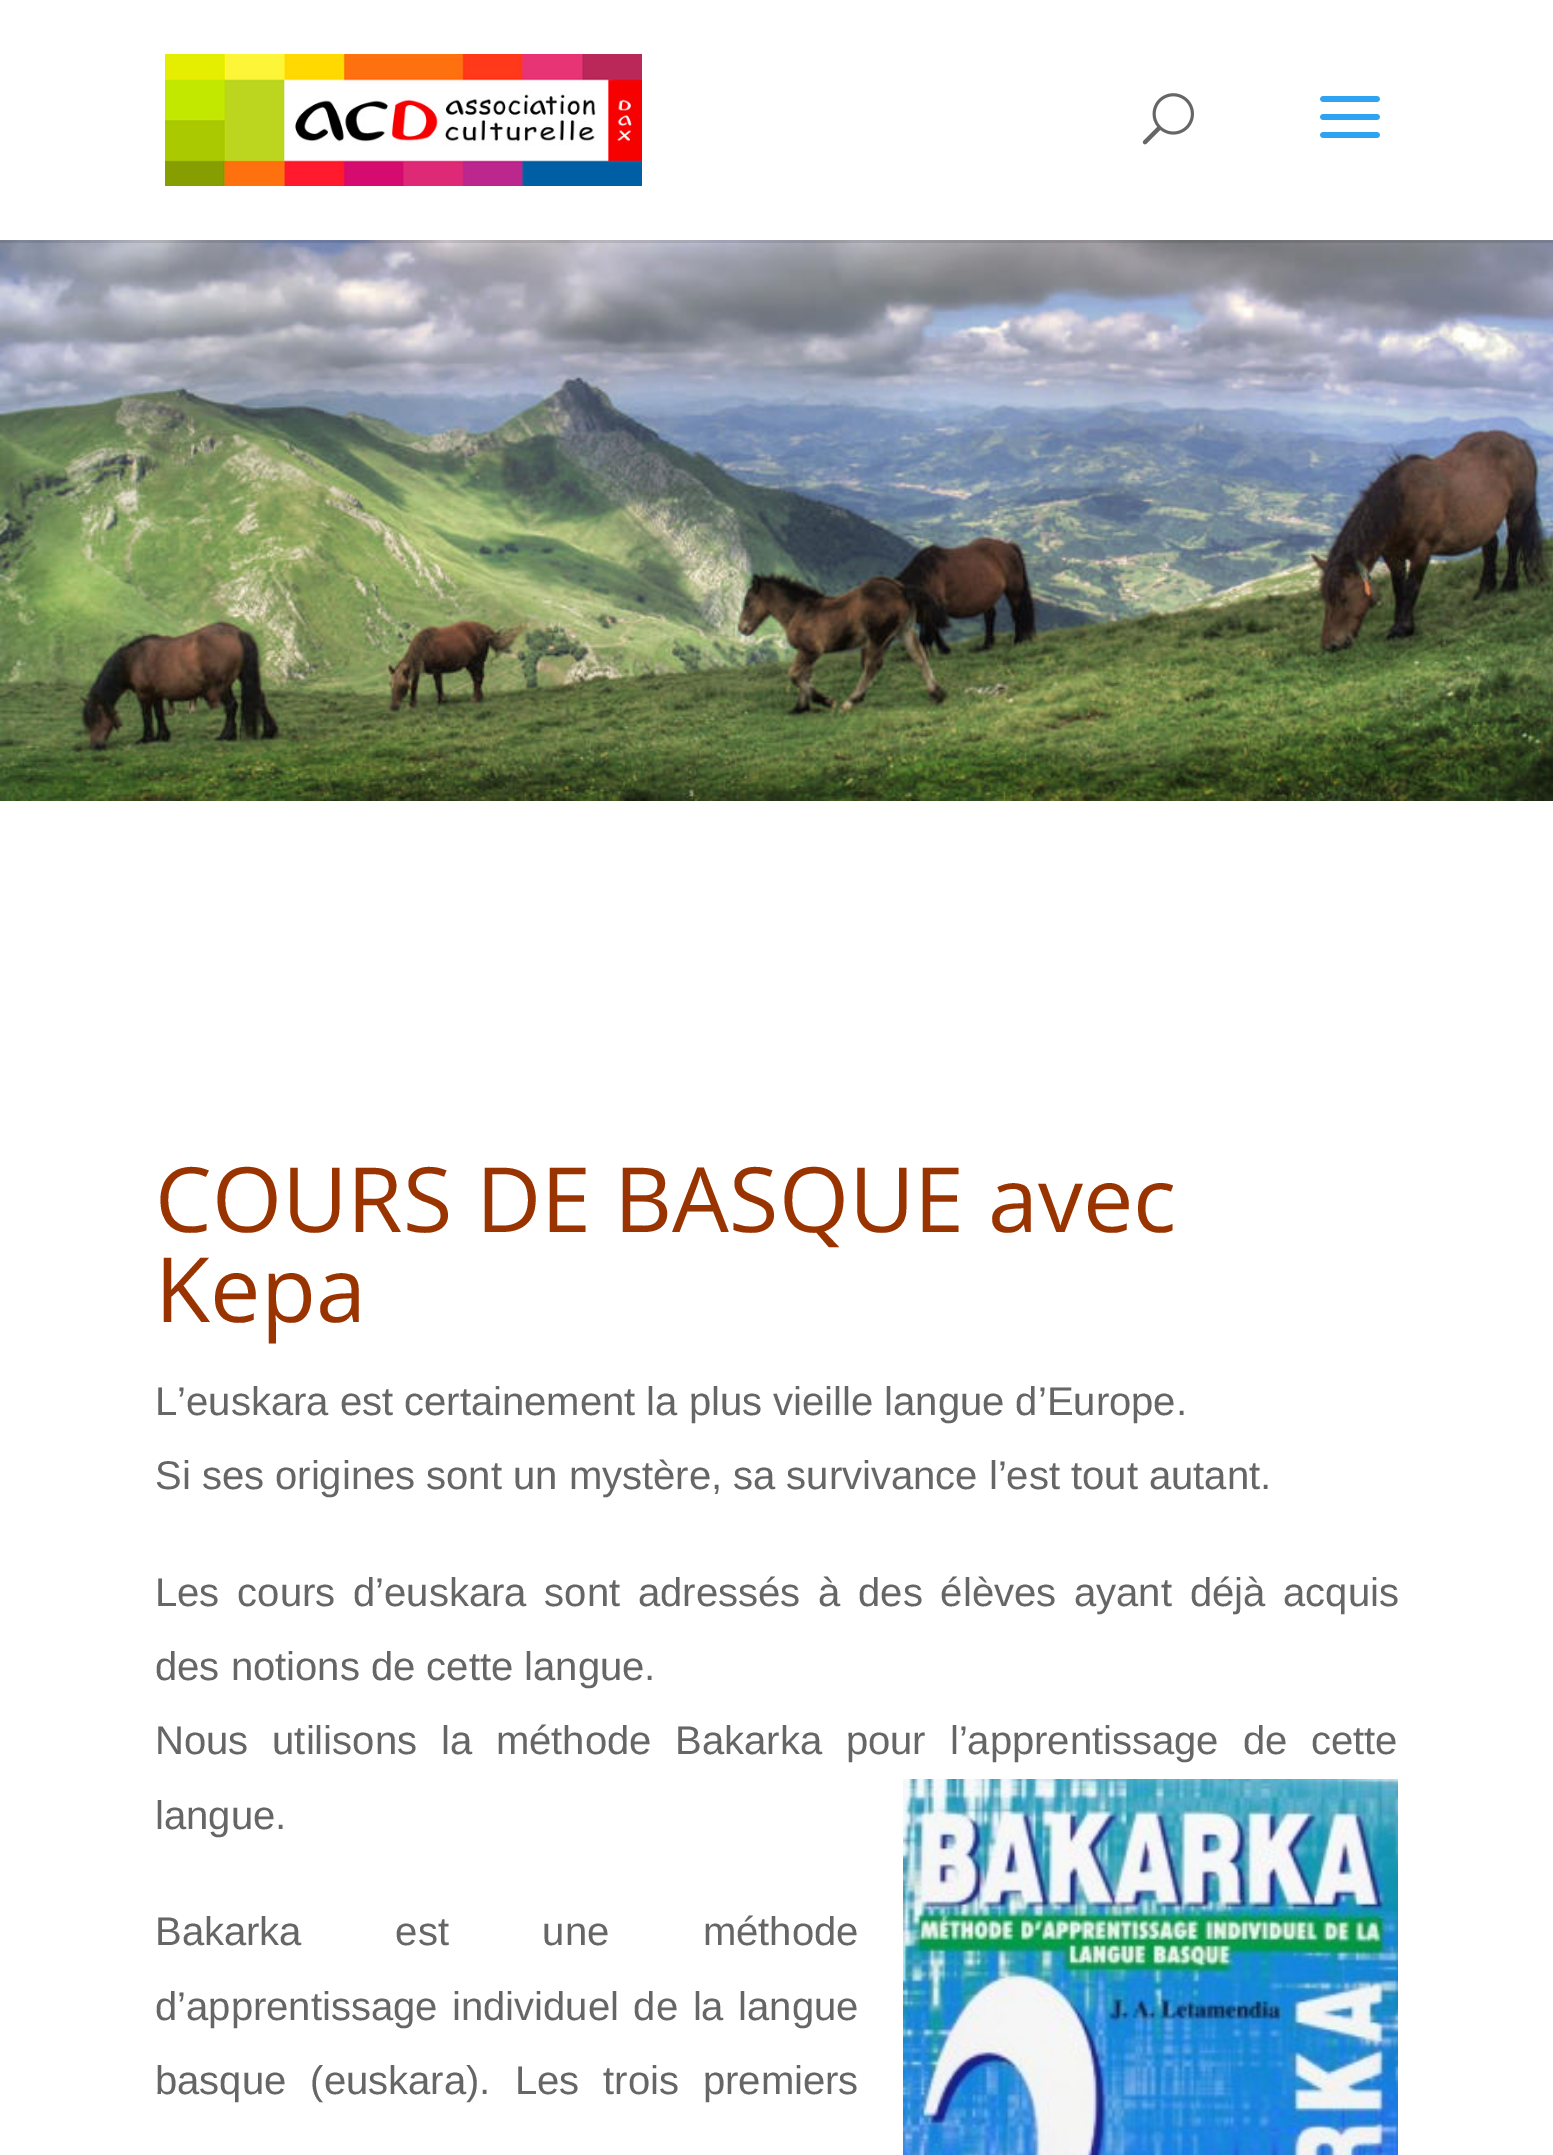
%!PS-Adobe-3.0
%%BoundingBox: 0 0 1553 2155
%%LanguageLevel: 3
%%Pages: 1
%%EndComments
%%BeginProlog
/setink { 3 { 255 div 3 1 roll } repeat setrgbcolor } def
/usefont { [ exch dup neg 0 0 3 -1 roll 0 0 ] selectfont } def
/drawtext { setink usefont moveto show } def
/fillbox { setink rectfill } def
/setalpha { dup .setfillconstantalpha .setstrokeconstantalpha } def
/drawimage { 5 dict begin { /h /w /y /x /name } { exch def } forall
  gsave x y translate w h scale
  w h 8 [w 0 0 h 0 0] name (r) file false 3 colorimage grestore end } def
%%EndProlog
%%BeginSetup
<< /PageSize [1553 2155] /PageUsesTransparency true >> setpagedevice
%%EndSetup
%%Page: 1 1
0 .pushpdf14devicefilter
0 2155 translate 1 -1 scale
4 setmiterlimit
0 0 1553 2155 255 255 255 fillbox
(assets/img4.rgb) 0 240 1553 561 drawimage
0.1 setalpha
0 240 1553 3 0 0 0 fillbox
1 setalpha
(assets/img1.rgb) 165 54 477 132 drawimage
(assets/img2.rgb) 1142 93 52 52 drawimage
(assets/img3.rgb) 1320 96 60 42 drawimage
(COURS DE BASQUE avec) 155 1232 /OpenSans-Regular 90 153 51 0 drawtext
(Kepa) 155 1322 /OpenSans-Regular 90 153 51 0 drawtext
(L’euskara est certainement la plus vieille langue d’Europe.) 155 1415 /LiberationSans-Regular 40 102 102 102 drawtext
(Si ses origines sont un mystère, sa survivance l’est tout autant.) 155 1489 /LiberationSans-Regular 40 102 102 102 drawtext
155 1606 moveto 6.75 0 32 (Les cours d’euskara sont adressés à des élèves ayant déjà acquis) widthshow
(des notions de cette langue.) 155 1680 /LiberationSans-Regular 40 102 102 102 drawtext
155 1754 moveto 12.75 0 32 (Nous utilisons la méthode Bakarka pour l’apprentissage de cette) widthshow
(langue.) 155 1829 /LiberationSans-Regular 40 102 102 102 drawtext
(assets/img5.rgb) 903 1779 495 376 drawimage
155 1945 moveto 82.5 0 32 (Bakarka est une méthode) widthshow
155 2020 moveto 3.5 0 32 (d’apprentissage individuel de la langue) widthshow
155 2094 moveto 13 0 32 (basque \(euskara\). Les trois premiers) widthshow
.poppdf14devicefilter showpage
%%EOF
